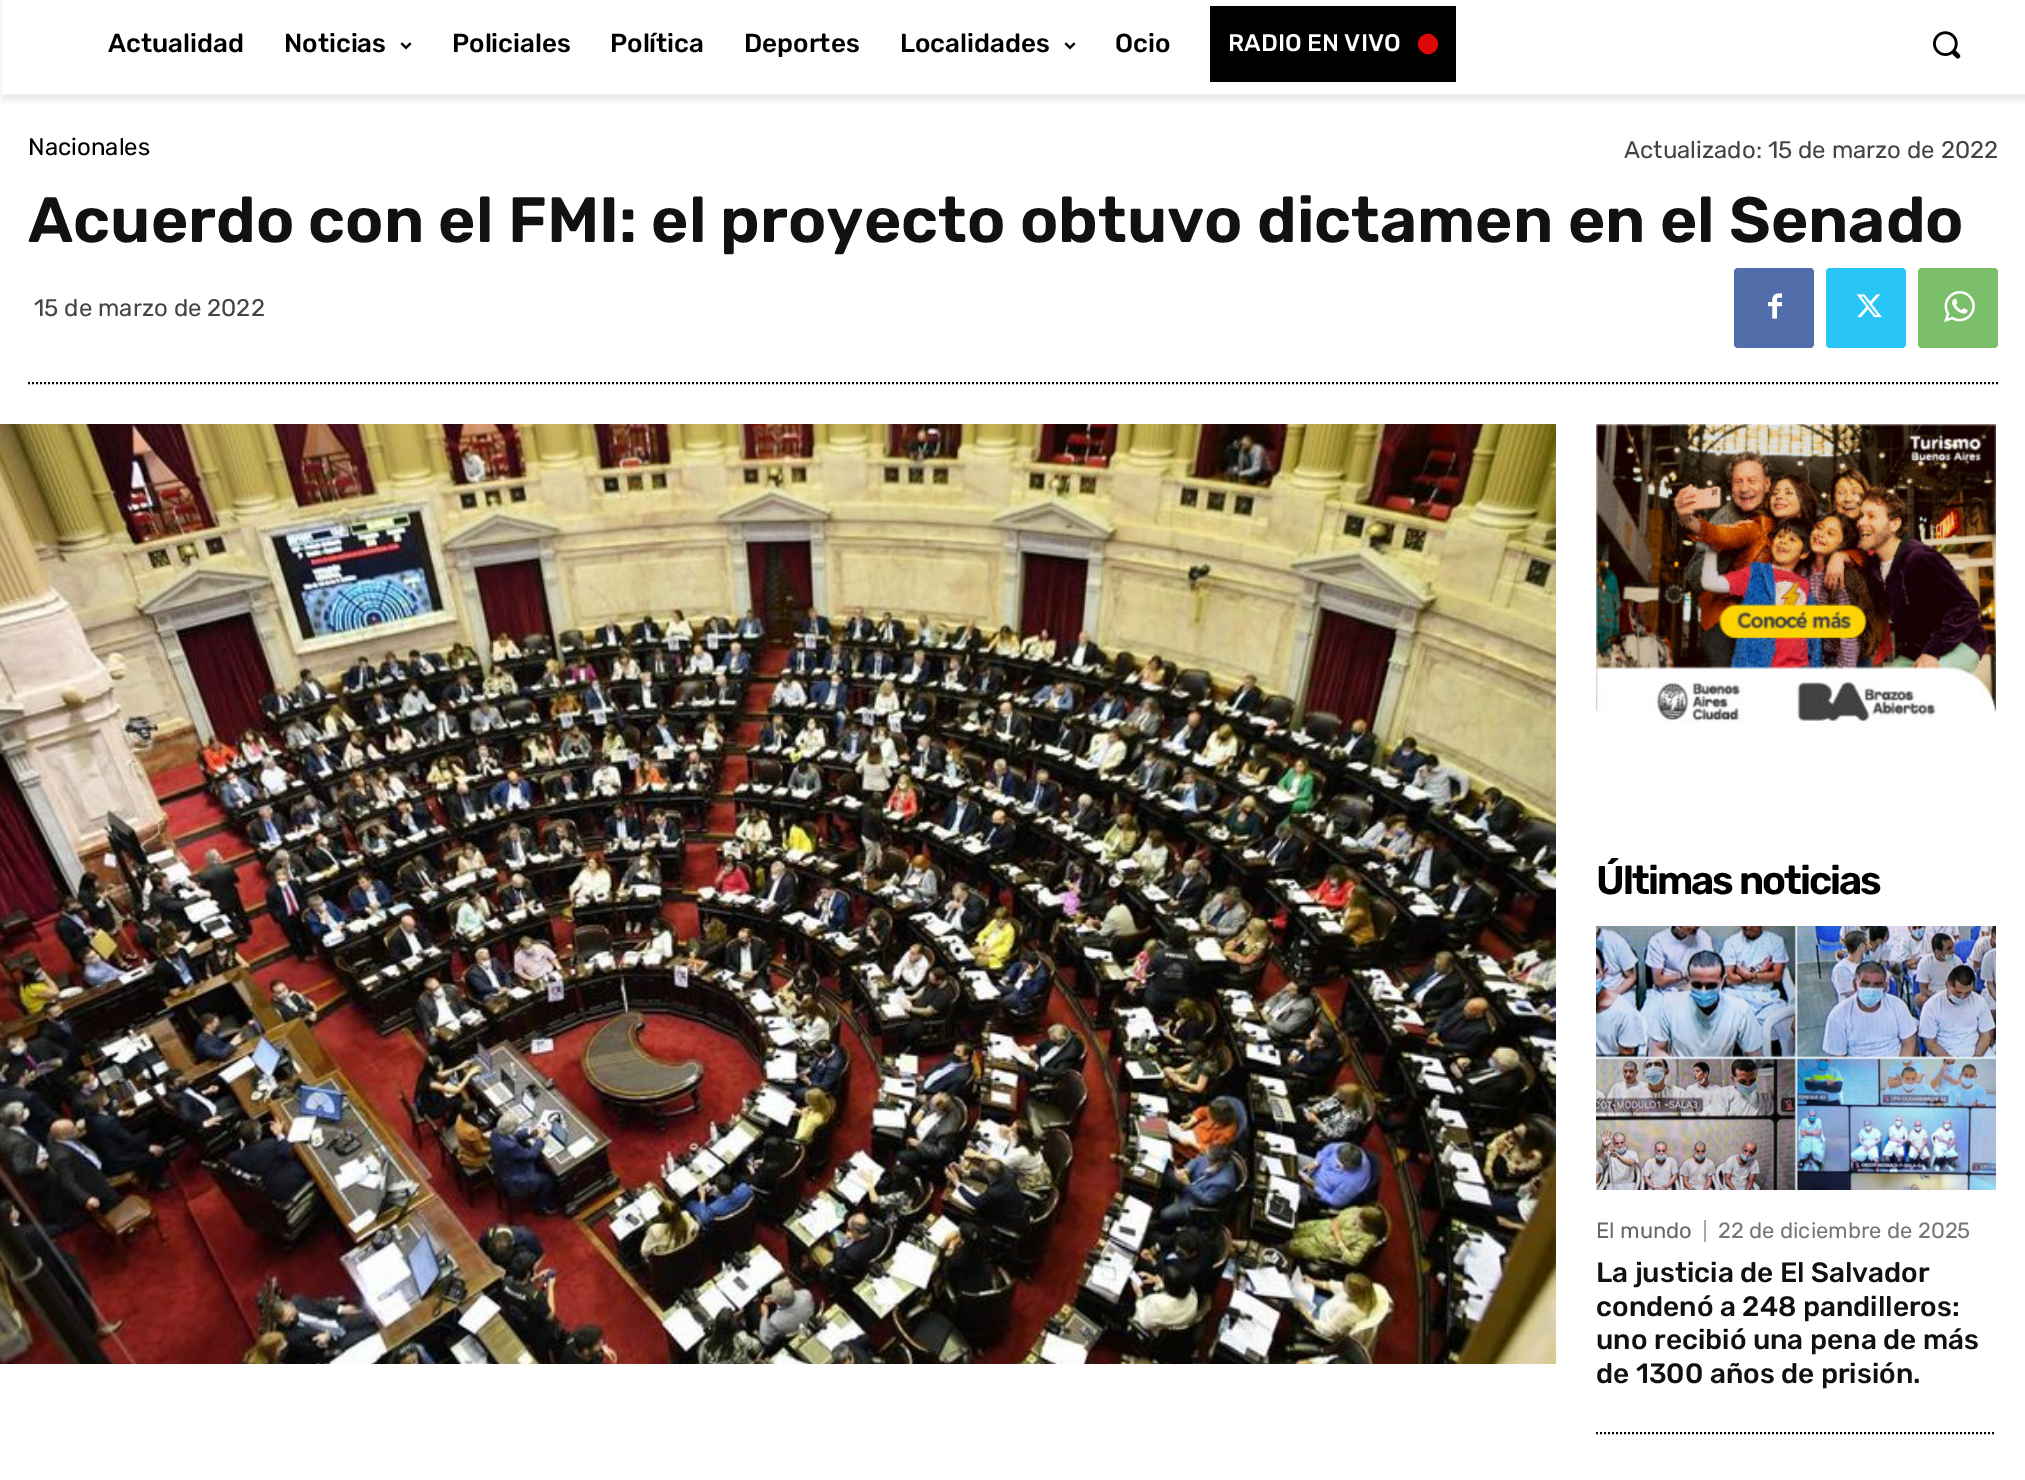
%!PS-Adobe-3.0
%%BoundingBox: 0 0 2025 1480
%%LanguageLevel: 3
%%Pages: 1
%%EndComments
%%BeginProlog
/setink { 3 { 255 div 3 1 roll } repeat setrgbcolor } def
/usefont { [ exch dup neg 0 0 3 -1 roll 0 0 ] selectfont } def
/drawtext { setink usefont moveto show } def
/fillbox { setink rectfill } def
/setalpha { dup .setfillconstantalpha .setstrokeconstantalpha } def
/rrect { 5 dict begin { /r /h /w /y /x } { exch def } forall
  x r add y moveto x w add y 2 copy h add r arct x w add y h add x 1 index r arct
  x y h add x y r arct x y 2 copy exch w add exch r arct closepath end } def
/softshadow { 12 dict begin { /a /b /q /h /w /y /x } { exch def } forall gsave /was 0 def
  9 -2 -9 { dup b mul 4 div /e exch def 1 sub .425 mul 2.718 exch exp 1 add a .99 .min exch div /now exch def
    1 1 now sub 1 was sub div sub setalpha /was now def
    w h .min e 2 mul add 0 gt { x e sub y e sub w e 2 mul add h e 2 mul add
      q e add b .6 mul add w h .min 2 div e add .min 0 .max rrect fill } if } for grestore end } def
/drawimage { 5 dict begin { /h /w /y /x /name } { exch def } forall
  gsave x y translate w h scale
  w h 8 [w 0 0 h 0 0] name (r) file false 3 colorimage grestore end } def
%%EndProlog
%%BeginSetup
<< /PageSize [2025 1480] /PageUsesTransparency true >> setpagedevice
%%EndSetup
%%Page: 1 1
0 .pushpdf14devicefilter
0 1480 translate 1 -1 scale
4 setmiterlimit
0 0 2025 1480 255 255 255 fillbox
1210 6 246 76 0 0 0 fillbox
221 6 6 setink
1421 37 moveto 1430 27.5 1444.5 42 1435 51 curveto 1426 60.5 1411.5 46 1421 37 curveto closepath fill
gsave
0 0 moveto 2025 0 lineto 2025 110 lineto 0 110 lineto closepath 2 -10 moveto 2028 -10 lineto 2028 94 lineto 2 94 lineto closepath eoclip newpath
0 0 0 setink
2 -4 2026 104 0 3 0.08 softshadow
grestore
(Actualidad) 108 52 /Rubik-Medium 26 0 0 0 drawtext
(Noticias) 284 52 /Rubik-Medium 26 0 0 0 drawtext
(assets/img1.rgb) 400 42 12 8 drawimage
(Policiales) 452 52 /Rubik-Medium 26 0 0 0 drawtext
(Política) 610 52 /Rubik-Medium 26 0 0 0 drawtext
(Deportes) 744 52 /Rubik-Medium 26 0 0 0 drawtext
(Localidades) 900 52 /Rubik-Medium 26 0 0 0 drawtext
(assets/img1.rgb) 1064 42 12 8 drawimage
(Ocio) 1115 52 /Rubik-Medium 26 0 0 0 drawtext
(RADIO EN VIVO) 1228 51 /Rubik-Medium 24 255 255 255 drawtext
(assets/img2.rgb) 1933 31 28 28 drawimage
(Nacionales) 28 155 /Rubik-Regular 24 0 0 0 drawtext
(Actualizado: 15 de marzo de 2022) 1624 158 /Rubik-Regular 24 68 68 68 drawtext
(Acuerdo con el FMI: el proyecto obtuvo dictamen en el Senado) 28 242 /Rubik-SemiBold 64 17 17 17 drawtext
(15 de marzo de 2022) 34 316 /Rubik-Regular 24 68 68 68 drawtext
81 110 171 setink
1734 268 80 80 4 rrect fill
(assets/img3.rgb) 1768 293 14 26 drawimage
41 197 246 setink
1826 268 80 80 4 rrect fill
(assets/img4.rgb) 1856 294 26 24 drawimage
123 191 106 setink
1918 268 80 80 4 rrect fill
(assets/img5.rgb) 1944 291 31 31 drawimage
0 0 0 setink
2 setlinewidth
[2 2] 0 setdash
28 383 moveto 1998 383 lineto stroke
(assets/img6.rgb) 0 424 1556 940 drawimage
(assets/img7.rgb) 1596 424 400 299 drawimage
/Rubik-SemiBold 40 usefont
1596 894 moveto -2 0 (Últimas noticias) ashow
1596 1433 moveto 1996 1433 lineto stroke
(assets/img8.rgb) 1596 926 400 264 drawimage
1704 1220 2 22 170 170 170 fillbox
(El mundo) 1596 1238 /Rubik-Regular 22 102 102 102 drawtext
(22 de diciembre de 2025) 1718 1238 /Rubik-Regular 22 118 118 118 drawtext
(La justicia de El Salvador) 1596 1282 /Rubik-Medium 28 17 17 17 drawtext
(condenó a 248 pandilleros:) 1596 1316 /Rubik-Medium 28 17 17 17 drawtext
(uno recibió una pena de más) 1596 1349 /Rubik-Medium 28 17 17 17 drawtext
(de 1300 años de prisión.) 1596 1383 /Rubik-Medium 28 17 17 17 drawtext
.poppdf14devicefilter showpage
%%EOF
